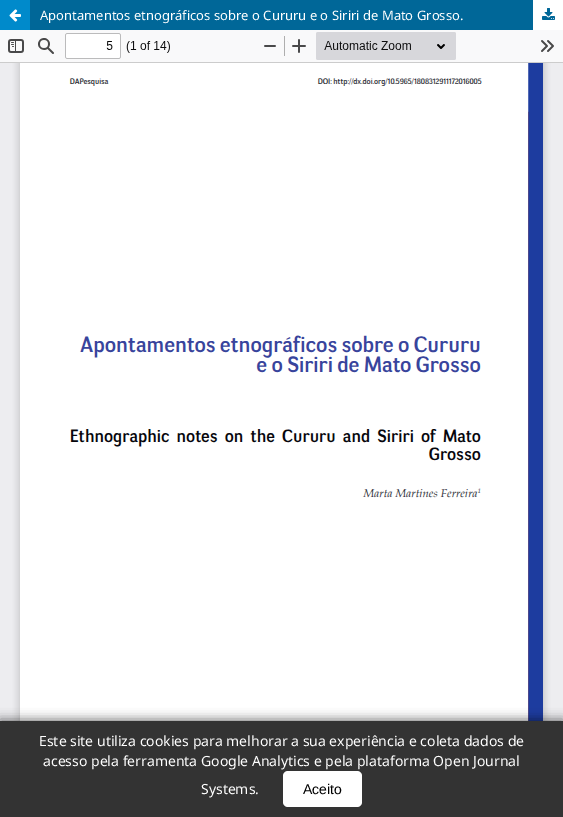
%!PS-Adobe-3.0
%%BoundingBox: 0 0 563 817
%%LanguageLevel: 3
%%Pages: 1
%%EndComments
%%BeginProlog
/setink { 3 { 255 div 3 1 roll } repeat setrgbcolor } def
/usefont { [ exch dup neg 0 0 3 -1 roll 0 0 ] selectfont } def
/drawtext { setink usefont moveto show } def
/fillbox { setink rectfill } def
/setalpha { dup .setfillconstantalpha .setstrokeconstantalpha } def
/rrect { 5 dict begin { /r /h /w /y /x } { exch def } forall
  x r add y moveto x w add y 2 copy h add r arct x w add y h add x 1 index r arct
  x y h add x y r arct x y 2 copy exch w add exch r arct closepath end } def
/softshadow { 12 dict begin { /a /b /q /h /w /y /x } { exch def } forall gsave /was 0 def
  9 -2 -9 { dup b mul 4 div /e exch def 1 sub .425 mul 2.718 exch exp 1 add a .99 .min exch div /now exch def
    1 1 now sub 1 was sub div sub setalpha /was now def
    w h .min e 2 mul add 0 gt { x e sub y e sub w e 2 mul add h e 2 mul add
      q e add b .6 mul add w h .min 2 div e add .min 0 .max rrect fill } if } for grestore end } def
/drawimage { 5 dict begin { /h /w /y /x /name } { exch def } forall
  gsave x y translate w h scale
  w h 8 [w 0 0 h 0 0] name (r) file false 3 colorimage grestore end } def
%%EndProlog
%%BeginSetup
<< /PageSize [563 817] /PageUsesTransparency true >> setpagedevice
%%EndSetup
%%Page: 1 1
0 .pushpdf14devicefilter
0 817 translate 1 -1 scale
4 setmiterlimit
0 0 563 817 255 255 255 fillbox
30 0 503 30 0 103 152 fillbox
0 0 30 30 0 138 203 fillbox
(assets/img1.rgb) 9 9 12 13 drawimage
(Apontamentos etnográficos sobre o Cururu e o Siriri de Mato Grosso.) 40 20 /NotoSans-Regular 13 255 255 255 drawtext
(assets/img2.rgb) 542 8 13 12 drawimage
(assets/img3.rgb) 0 30 563 691 drawimage
0 0 0 setink
0 719 563 96 0 5 0.5 softshadow
0 721 563 96 51 51 51 fillbox
(Este site utiliza cookies para melhorar a sua experiência e coleta dados de) 39 746 /NotoSans-Regular 14 255 255 255 drawtext
(acesso pela ferramenta Google Analytics e pela plataforma Open Journal) 43 766 /NotoSans-Regular 14 255 255 255 drawtext
(Systems.) 201 794 /NotoSans-Regular 14 255 255 255 drawtext
283 771 79 36 5 rrect fill
(Aceito) 303 794 /LiberationSans-Regular 14 0 0 0 drawtext
.poppdf14devicefilter showpage
%%EOF
